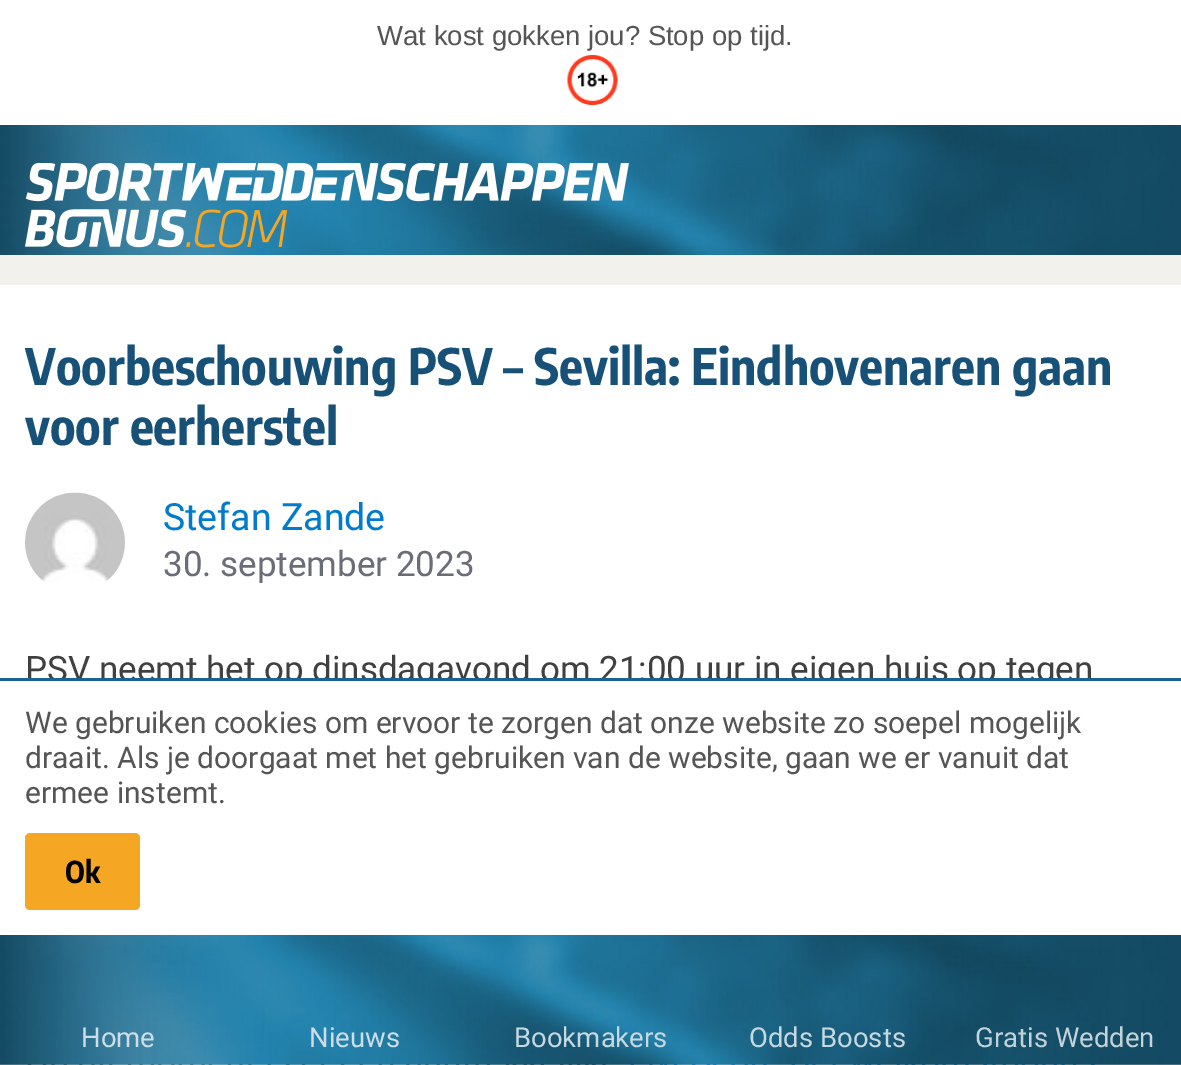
%!PS-Adobe-3.0
%%BoundingBox: 0 0 1181 1065
%%LanguageLevel: 3
%%Pages: 1
%%EndComments
%%BeginProlog
/setink { 3 { 255 div 3 1 roll } repeat setrgbcolor } def
/usefont { [ exch dup neg 0 0 3 -1 roll 0 0 ] selectfont } def
/drawtext { setink usefont moveto show } def
/fillbox { setink rectfill } def
/rrect { 5 dict begin { /r /h /w /y /x } { exch def } forall
  x r add y moveto x w add y 2 copy h add r arct x w add y h add x 1 index r arct
  x y h add x y r arct x y 2 copy exch w add exch r arct closepath end } def
/drawimage { 5 dict begin { /h /w /y /x /name } { exch def } forall
  gsave x y translate w h scale
  w h 8 [w 0 0 h 0 0] name (r) file false 3 colorimage grestore end } def
%%EndProlog
%%BeginSetup
<< /PageSize [1181 1065] >> setpagedevice
%%EndSetup
%%Page: 1 1
0 1065 translate 1 -1 scale
4 setmiterlimit
0 0 1181 1065 242 241 236 fillbox
0 0 1181 125 255 255 255 fillbox
(Wat kost gokken jou? Stop op tijd.) 377 45 /LiberationSans-Regular 27.5 85 85 85 drawtext
(assets/img1.rgb) 567 55 51 50 drawimage
(assets/img2.rgb) 0 125 1181 130 drawimage
(assets/img3.rgb) 25 163 604 85 drawimage
0 285 1181 780 255 255 255 fillbox
(Voorbeschouwing PSV – Sevilla: Eindhovenaren gaan) 25 385 /EncodeSansCondensed-Bold 50 23 81 120 drawtext
(voor eerherstel) 25 445 /EncodeSansCondensed-Bold 50 23 81 120 drawtext
(assets/img4.rgb) 25 492 100 90 drawimage
(Stefan Zande) 163 530 /Roboto-Regular 37.5 1 123 205 drawtext
(30. september 2023) 163 576 /Roboto-Regular 35 106 108 120 drawtext
(PSV neemt het op dinsdagavond om 21:00 uur in eigen huis op tegen) 25 681 /Roboto-Regular 35 64 64 64 drawtext
55 681 1013 8 255 255 255 fillbox
0 678 1181 3 27 98 148 fillbox
(We gebruiken cookies om ervoor te zorgen dat onze website zo soepel mogelijk) 25 733 /Roboto-Regular 30 85 85 85 drawtext
(draait. Als je doorgaat met het gebruiken van de website, gaan we er vanuit dat) 25 768 /Roboto-Regular 30 85 85 85 drawtext
(ermee instemt.) 25 803 /Roboto-Regular 30 85 85 85 drawtext
245 166 35 setink
25 833 115 77 5 rrect fill
(Ok) 65 883 /EncodeSansCondensed-Bold 30 0 0 0 drawtext
(assets/img5.rgb) 0 935 1181 130 drawimage
(Home) 81 1047 /Roboto-Regular 27.5 205 222 230 drawtext
(Nieuws) 309 1047 /Roboto-Regular 27.5 205 222 230 drawtext
(Bookmakers) 514 1047 /Roboto-Regular 27.5 198 217 225 drawtext
(Odds Boosts) 749 1047 /Roboto-Regular 27.5 198 217 225 drawtext
(Gratis Wedden) 975 1047 /Roboto-Regular 27.5 196 211 217 drawtext
showpage
%%EOF
